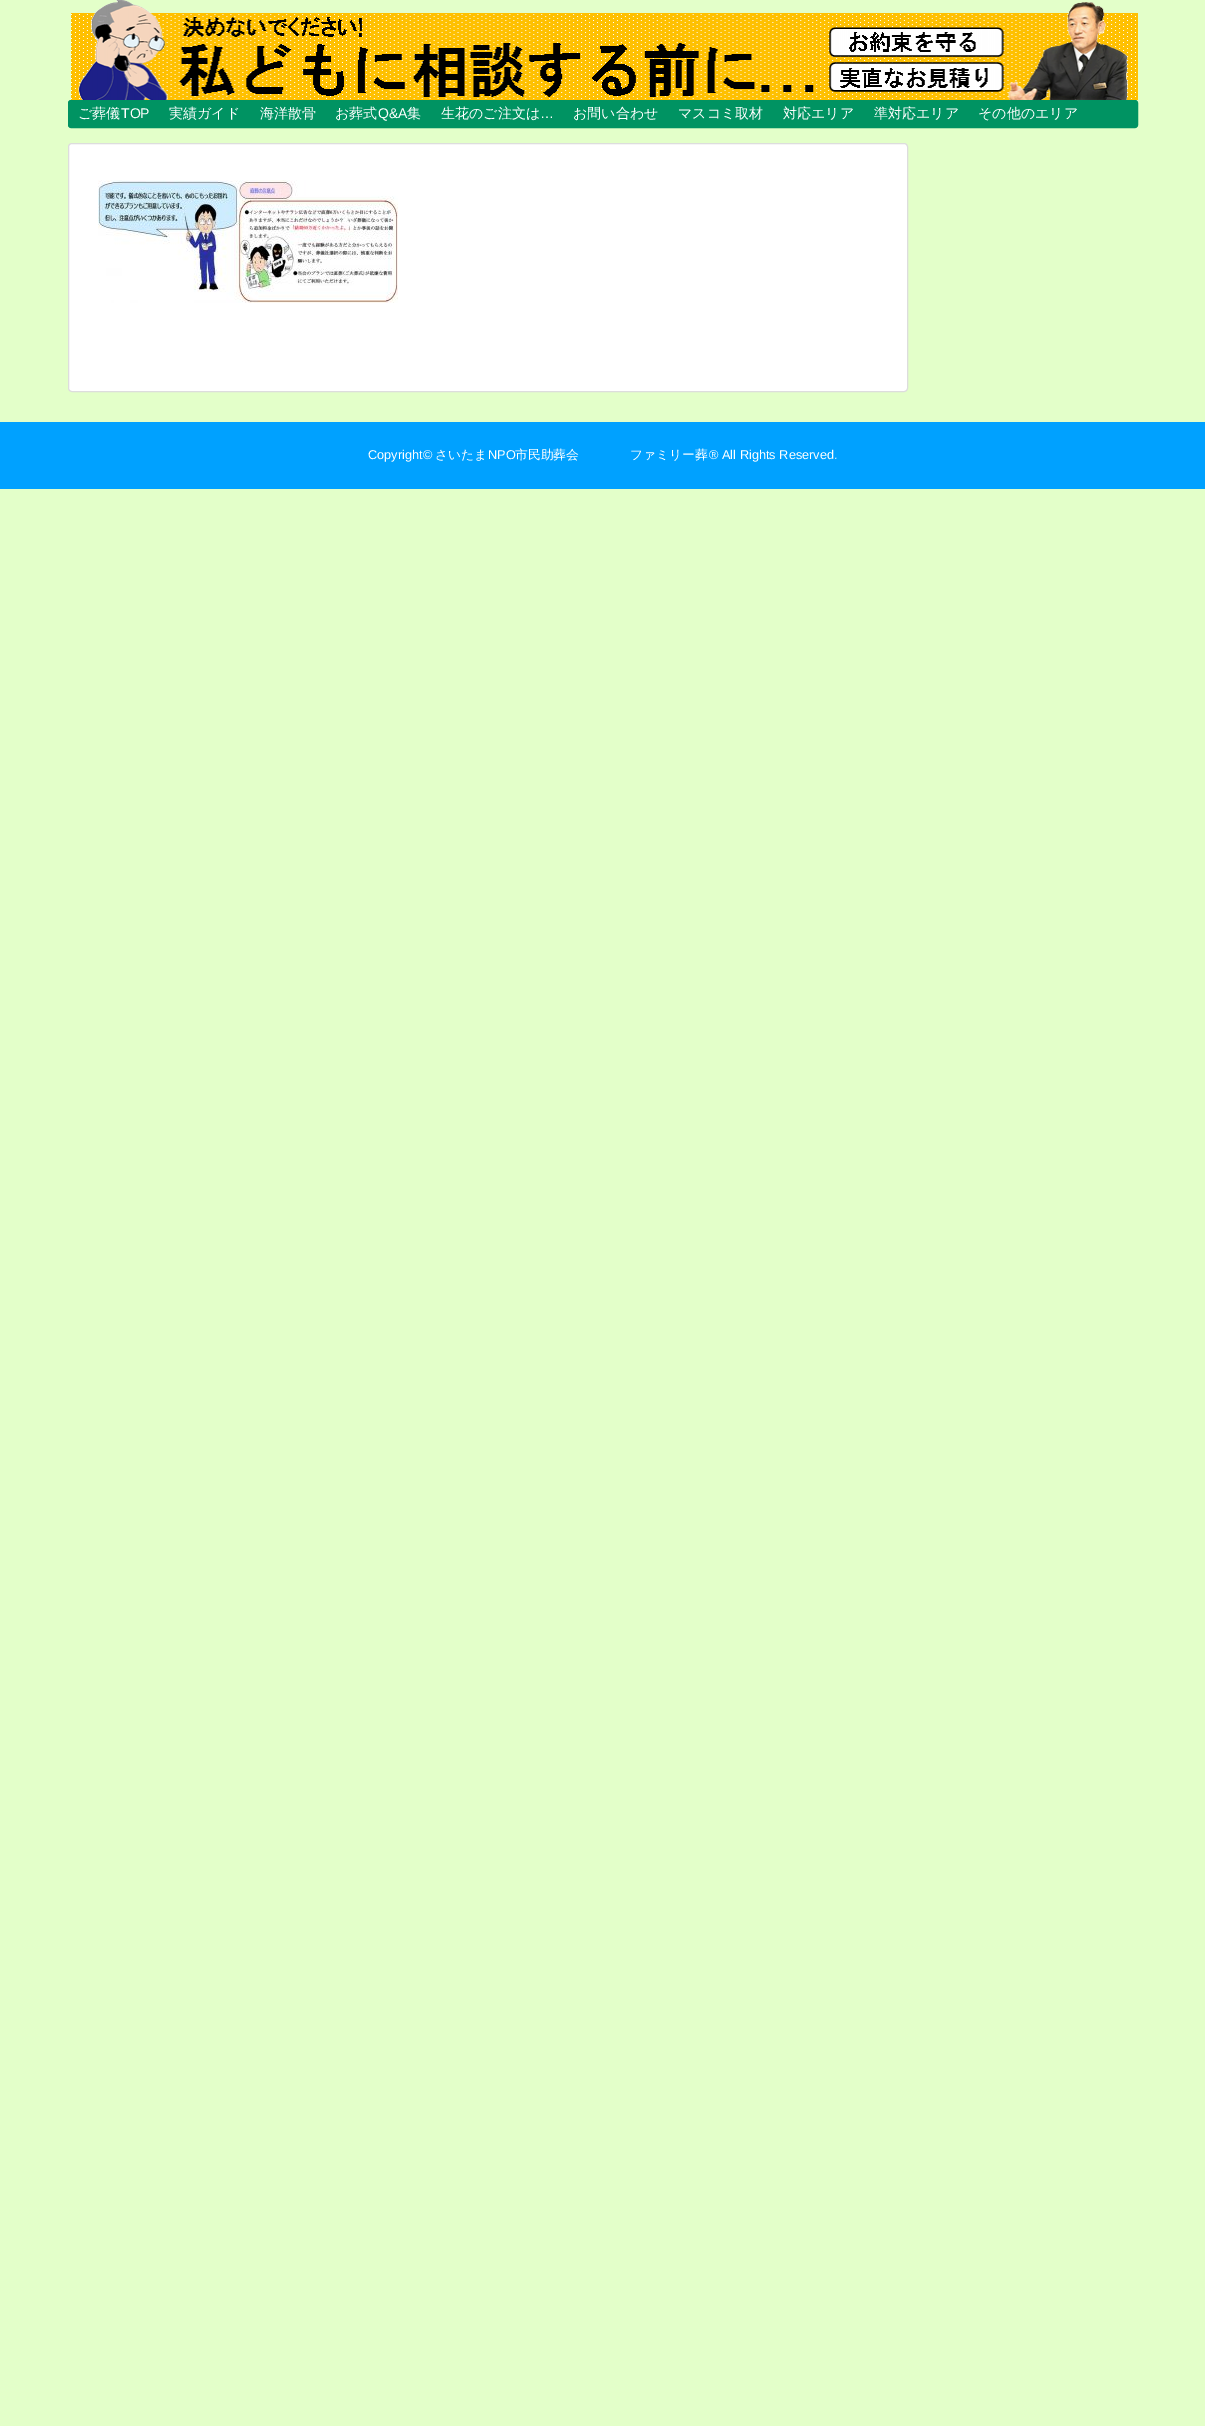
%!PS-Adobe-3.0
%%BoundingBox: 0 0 1205 2426
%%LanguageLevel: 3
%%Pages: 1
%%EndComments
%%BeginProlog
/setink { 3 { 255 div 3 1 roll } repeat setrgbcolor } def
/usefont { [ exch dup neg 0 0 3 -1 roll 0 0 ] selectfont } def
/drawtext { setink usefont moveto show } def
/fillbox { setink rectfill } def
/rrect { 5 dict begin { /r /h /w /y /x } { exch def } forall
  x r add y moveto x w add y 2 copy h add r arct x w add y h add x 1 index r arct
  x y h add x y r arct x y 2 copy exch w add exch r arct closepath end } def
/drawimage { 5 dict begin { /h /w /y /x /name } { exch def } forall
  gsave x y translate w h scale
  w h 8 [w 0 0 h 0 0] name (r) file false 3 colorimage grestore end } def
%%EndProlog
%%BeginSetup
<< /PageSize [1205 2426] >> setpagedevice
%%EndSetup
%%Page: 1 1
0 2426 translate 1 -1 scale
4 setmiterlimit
0 0 1205 2426 227 255 201 fillbox
(assets/img1.rgb) 71 0 1067 100 drawimage
0 147 98 setink
68.5 100.5 1069 27 2.5 rrect gsave fill grestore
stroke
(ご葬儀) 78 118 /WenQuanYiZenHei-Medium 14 255 255 255 drawtext
(TOP) 121 118 /LiberationSans-Regular 14 255 255 255 drawtext
(実績ガイド) 169 118 /WenQuanYiZenHei-Medium 14 255 255 255 drawtext
(海洋散骨) 260 118 /WenQuanYiZenHei-Medium 14 255 255 255 drawtext
(お葬式) 335 118 /WenQuanYiZenHei-Medium 14 255 255 255 drawtext
(Q&A) 378 118 /LiberationSans-Regular 14 255 255 255 drawtext
(集) 407 118 /WenQuanYiZenHei-Medium 14 255 255 255 drawtext
(生花のご注文は) 441 118 /WenQuanYiZenHei-Medium 14 255 255 255 drawtext
(…) 540 118 /LiberationSans-Regular 14 255 255 255 drawtext
(お問い合わせ) 573 118 /WenQuanYiZenHei-Medium 14 255 255 255 drawtext
(マスコミ取材) 678 118 /WenQuanYiZenHei-Medium 14 255 255 255 drawtext
(対応エリア) 783 118 /WenQuanYiZenHei-Medium 14 255 255 255 drawtext
(準対応エリア) 874 118 /WenQuanYiZenHei-Medium 14 255 255 255 drawtext
(その他のエリア) 978 118 /WenQuanYiZenHei-Medium 14 255 255 255 drawtext
68.5 143.5 839 248 3.5 rrect gsave fill grestore
221 221 221 setink
stroke
(assets/img2.rgb) 98 180 300 123 drawimage
0 422 1205 67 0 161 255 fillbox
(Copyright©) 368 459 /LiberationSans-Regular 12.75 255 255 255 drawtext
(さいたま) 435 459 /WenQuanYiZenHei-Medium 12.75 255 255 255 drawtext
(NPO) 488 459 /LiberationSans-Regular 12.75 255 255 255 drawtext
(市民助葬会　　　　ファミリー葬) 515 459 /WenQuanYiZenHei-Medium 12.75 255 255 255 drawtext
(® All Rights Reserved.) 709 459 /LiberationSans-Regular 12.75 255 255 255 drawtext
showpage
%%EOF
